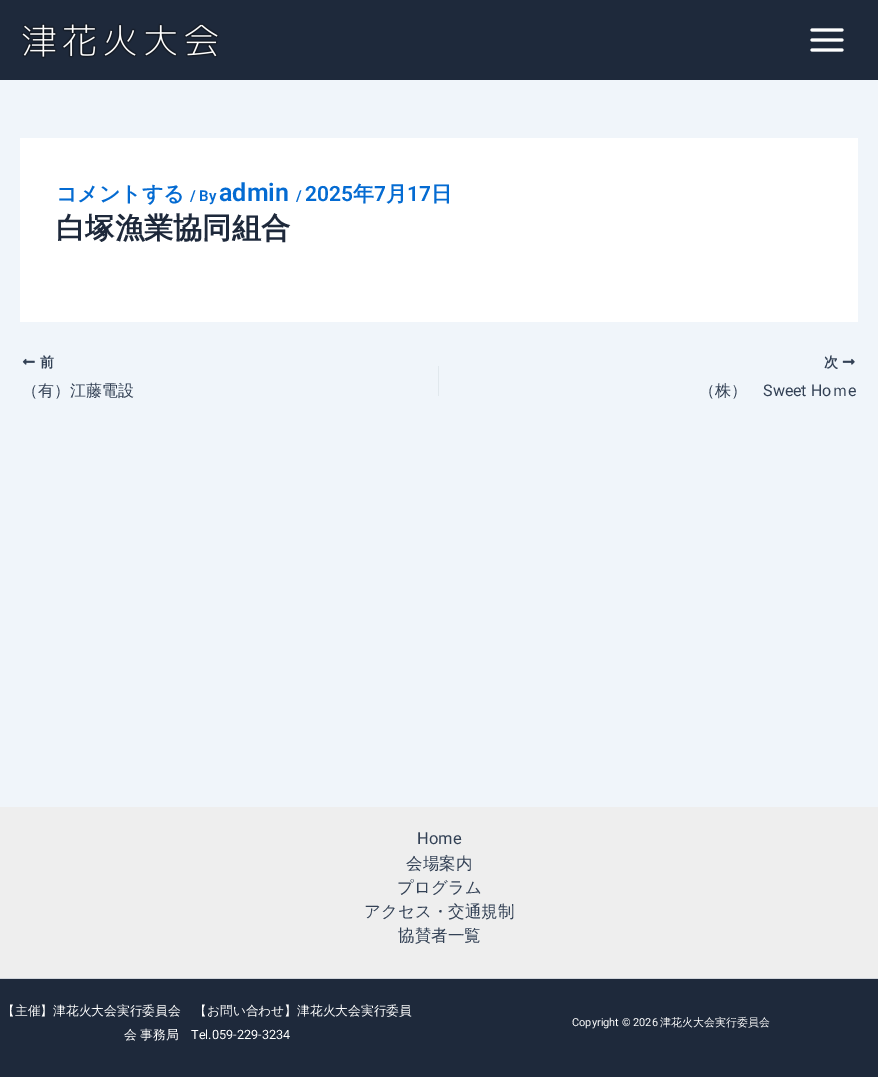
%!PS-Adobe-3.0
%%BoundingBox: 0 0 878 1077
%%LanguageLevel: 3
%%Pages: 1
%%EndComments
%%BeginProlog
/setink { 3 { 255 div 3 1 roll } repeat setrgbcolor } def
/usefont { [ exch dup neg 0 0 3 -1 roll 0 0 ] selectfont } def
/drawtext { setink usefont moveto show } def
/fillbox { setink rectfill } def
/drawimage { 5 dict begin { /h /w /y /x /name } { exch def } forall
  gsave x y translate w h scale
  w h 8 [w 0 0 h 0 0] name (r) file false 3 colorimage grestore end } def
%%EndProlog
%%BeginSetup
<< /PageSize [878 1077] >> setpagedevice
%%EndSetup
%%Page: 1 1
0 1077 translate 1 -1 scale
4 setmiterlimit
0 0 878 1077 240 245 250 fillbox
0 0 878 80 30 41 59 fillbox
(assets/img1.rgb) 21 23 198 36 drawimage
(assets/img2.rgb) 810 28 34 24 drawimage
20 138 838 184 255 255 255 fillbox
(コメントする) 56 201 /WenQuanYiZenHei-Bold 21 4 107 210 drawtext
(/ By) 190 201 /Roboto-SemiBold 15 4 107 210 drawtext
(admin) 219 201 /Roboto-SemiBold 25 4 107 210 drawtext
(/) 296 201 /Roboto-SemiBold 15 4 107 210 drawtext
(2025) 305 201 /Roboto-SemiBold 21 4 107 210 drawtext
(年) 353 201 /WenQuanYiZenHei-Bold 21 4 107 210 drawtext
(7) 374 201 /Roboto-SemiBold 21 4 107 210 drawtext
(月) 386 201 /WenQuanYiZenHei-Bold 21 4 107 210 drawtext
(17) 407 201 /Roboto-SemiBold 21 4 107 210 drawtext
(日) 431 201 /WenQuanYiZenHei-Bold 21 4 107 210 drawtext
(白塚漁業協同組合) 56 238 /WenQuanYiZenHei-Bold 29.25 30 41 59 drawtext
(assets/img3.rgb) 22 358 13 7 drawimage
/WenQuanYiZenHei-Bold 14 usefont
51 65 85 setink
40 367 moveto 1 0 (前) ashow
(（有）江藤電設) 22 396 /WenQuanYiZenHei-Medium 16 51 65 85 drawtext
438 366 1 30 225 232 237 fillbox
/WenQuanYiZenHei-Bold 14 usefont
51 65 85 setink
824 367 moveto 1 0 (次) ashow
(assets/img4.rgb) 842 358 13 7 drawimage
(（株）) 699 396 /WenQuanYiZenHei-Medium 16 51 65 85 drawtext
(Sweet Ho) 763 396 /Roboto-Regular 16 51 65 85 drawtext
(ｍ) 832 396 /WenQuanYiZenHei-Medium 16 51 65 85 drawtext
(e) 848 396 /Roboto-Regular 16 51 65 85 drawtext
0 807 878 171 238 238 238 fillbox
(Home) 417 844 /Roboto-Regular 16.5 51 65 85 drawtext
(会場案内) 406 869 /WenQuanYiZenHei-Medium 16.5 51 65 85 drawtext
(プログラム) 397 893 /WenQuanYiZenHei-Medium 16.5 51 65 85 drawtext
(アクセス・交通規制) 364 917 /WenQuanYiZenHei-Medium 16.5 51 65 85 drawtext
(協賛者一覧) 398 941 /WenQuanYiZenHei-Medium 16.5 51 65 85 drawtext
0 979 878 98 30 41 59 fillbox
0 978 878 1 209 213 219 fillbox
(【主催】津花火大会実行委員会) 2 1015 /WenQuanYiZenHei-Medium 12.75 255 255 255 drawtext
(【お問い合わせ】津花火大会実行委員) 194 1015 /WenQuanYiZenHei-Medium 12.75 255 255 255 drawtext
(会) 124 1039 /WenQuanYiZenHei-Medium 12.75 255 255 255 drawtext
(事務局) 140 1039 /WenQuanYiZenHei-Medium 12.75 255 255 255 drawtext
(Tel.059-229-3234) 191 1039 /Roboto-Regular 12.75 255 255 255 drawtext
(Copyright © 2026) 572 1026 /Roboto-Regular 11 255 255 255 drawtext
(津花火大会実行委員会) 660 1026 /WenQuanYiZenHei-Medium 11 255 255 255 drawtext
showpage
%%EOF
